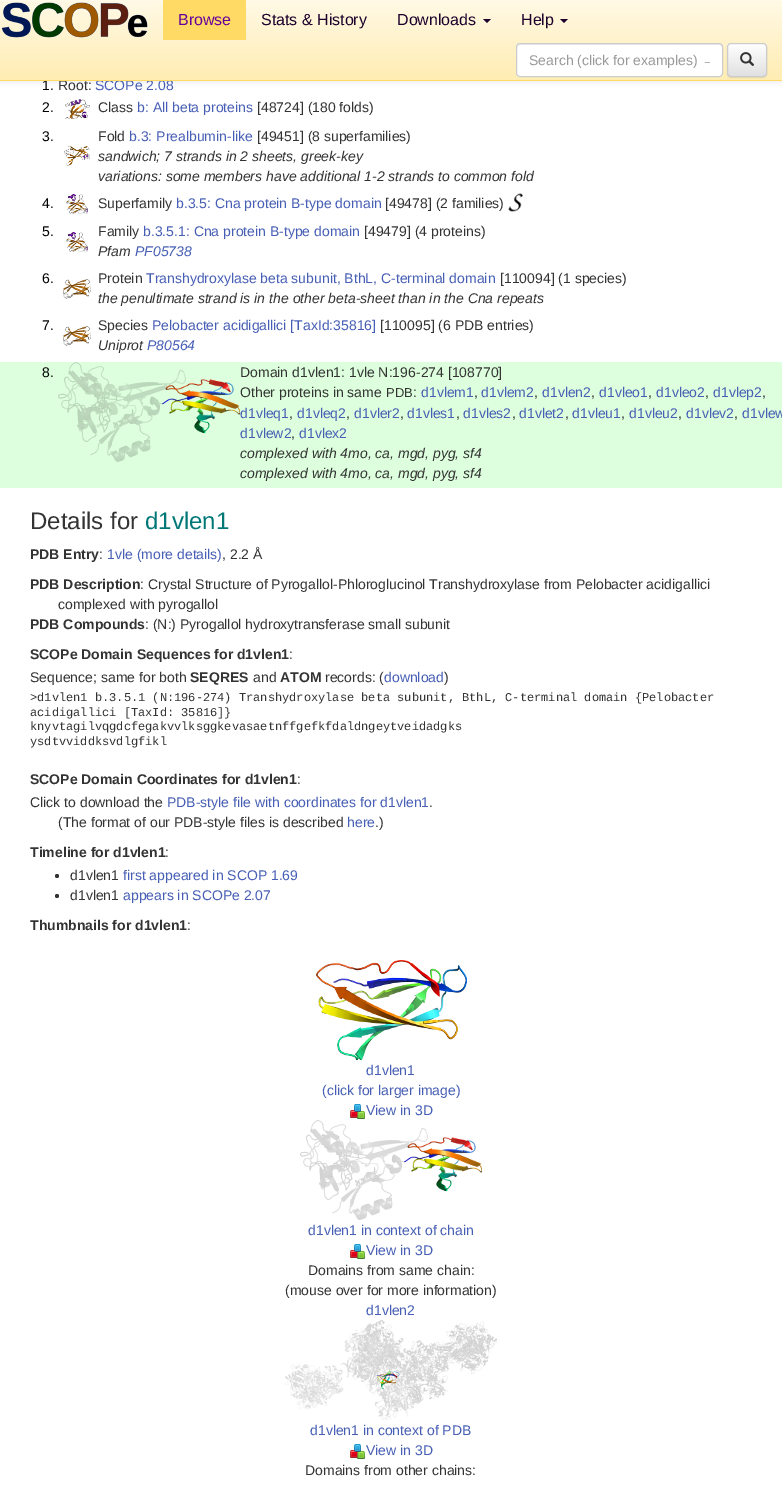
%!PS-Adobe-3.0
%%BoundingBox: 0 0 782 1488
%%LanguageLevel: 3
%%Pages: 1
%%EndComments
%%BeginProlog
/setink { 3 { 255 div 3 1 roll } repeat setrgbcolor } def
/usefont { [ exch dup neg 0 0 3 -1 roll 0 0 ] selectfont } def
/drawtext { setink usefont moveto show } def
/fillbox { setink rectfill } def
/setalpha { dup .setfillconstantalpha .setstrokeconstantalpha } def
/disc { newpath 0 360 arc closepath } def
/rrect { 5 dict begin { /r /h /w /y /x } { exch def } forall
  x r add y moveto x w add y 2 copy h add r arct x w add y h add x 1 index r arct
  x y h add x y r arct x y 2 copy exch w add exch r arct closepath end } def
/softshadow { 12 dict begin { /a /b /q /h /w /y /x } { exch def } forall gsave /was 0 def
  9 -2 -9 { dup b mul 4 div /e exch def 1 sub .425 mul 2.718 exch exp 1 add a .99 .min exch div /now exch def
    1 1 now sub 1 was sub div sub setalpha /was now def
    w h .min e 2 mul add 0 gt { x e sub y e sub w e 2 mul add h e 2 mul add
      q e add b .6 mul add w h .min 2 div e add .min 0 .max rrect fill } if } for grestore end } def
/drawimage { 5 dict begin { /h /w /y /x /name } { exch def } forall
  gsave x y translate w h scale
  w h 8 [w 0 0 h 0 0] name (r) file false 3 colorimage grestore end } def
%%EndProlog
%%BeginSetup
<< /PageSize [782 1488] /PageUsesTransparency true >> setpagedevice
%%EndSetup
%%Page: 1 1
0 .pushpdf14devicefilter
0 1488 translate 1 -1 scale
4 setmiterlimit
0 0 782 1488 255 255 255 fillbox
0 0 0 setink
0 1 782 81 0 2.5 0.07 softshadow
gsave 0 1 moveto 782 1 lineto 782 80 lineto 0 80 lineto closepath clip newpath
<< /ShadingType 2 /ColorSpace /DeviceRGB /Coords [391 0 391 80] /Extend [true true] /Function << /FunctionType 2 /Domain [0 1] /C0 [1 0.976 0.902] /C1 [1 0.929 0.702] /N 1 >> >> shfill grestore
0 0 782 1 255 250 234 fillbox
(1.) 42 90 /LiberationSans-Regular 14 0 0 0 drawtext
(Root:) 58 90 /LiberationSans-Regular 14 51 51 51 drawtext
(SCOPe 2.08) 95 90 /LiberationSans-Regular 14 70 94 180 drawtext
0 80 782 1 255 218 101 fillbox
(assets/img1.rgb) 2 2 146 36 drawimage
163 0 83 40 255 218 101 fillbox
(Browse) 178 25 /LiberationSans-Regular 16 102 0 153 drawtext
(Stats & History) 261 25 /LiberationSans-Regular 16 29 0 43 drawtext
(Downloads) 397 25 /LiberationSans-Regular 16 29 0 43 drawtext
483 19 moveto 491 19 lineto 487 23 lineto closepath fill
(Help) 521 25 /LiberationSans-Regular 16 29 0 43 drawtext
560 19 moveto 568 19 lineto 564 23 lineto closepath fill
255 255 255 setink
516 43 207 34 4 rrect fill
236 236 236 setink
520 45 moveto 719 45 lineto 721 45 722 46 722 48 curveto 722 46 721 44 719 44 curveto 520 44 lineto 518 44 517 46 517 48 curveto 517 46 518 45 520 45 curveto closepath fill
204 204 204 setink
516.5 43.5 206 33 3.5 rrect stroke
gsave
529 52 181 16 rectclip
(Search \(click for examples\) →) 529 65 /LiberationSans-Regular 14 153 153 153 drawtext
grestore
0 0 0 setink
727 44 40 34 4 0.5 0.07 softshadow
gsave
727 43 40 34 4 rrect clip newpath
gsave 727 44 moveto 767 44 lineto 767 76 lineto 727 76 lineto closepath clip newpath
<< /ShadingType 2 /ColorSpace /DeviceRGB /Coords [747 44 747 76] /Extend [true true] /Function << /FunctionType 2 /Domain [0 1] /C0 [1 1 1] /C1 [0.878 0.878 0.878] /N 1 >> >> shfill grestore
grestore
204 204 204 setink
727.5 43.5 39 33 3.5 rrect stroke
(assets/img2.rgb) 740 52 15 14 drawimage
(2.) 42 112 /LiberationSans-Regular 14 0 0 0 drawtext
(assets/img3.rgb) 65 99 25 20 drawimage
(Class) 98 112 /LiberationSans-Regular 14 51 51 51 drawtext
(b: All beta proteins) 137 112 /LiberationSans-Regular 14 70 94 180 drawtext
([48724] \(180 folds\)) 257 112 /LiberationSans-Regular 14 51 51 51 drawtext
(3.) 42 141 /LiberationSans-Regular 14 0 0 0 drawtext
(assets/img4.rgb) 64 146 26 20 drawimage
(Fold) 98 141 /LiberationSans-Regular 14 51 51 51 drawtext
(b.3: Prealbumin-like) 129 141 /LiberationSans-Regular 14 70 94 180 drawtext
([49451] \(8 superfamilies\)) 257 141 /LiberationSans-Regular 14 51 51 51 drawtext
(sandwich; 7 strands in 2 sheets, greek-key) 98 161 /LiberationSans-Italic 14 51 51 51 drawtext
(variations: some members have additional 1-2 strands to common fold) 98 181 /LiberationSans-Italic 14 51 51 51 drawtext
(4.) 42 208 /LiberationSans-Regular 14 0 0 0 drawtext
(assets/img5.rgb) 66 194 22 20 drawimage
(Superfamily) 98 208 /LiberationSans-Regular 14 51 51 51 drawtext
(b.3.5: Cna protein B-type domain) 176 208 /LiberationSans-Regular 14 70 94 180 drawtext
([49478] \(2 families\)) 385 208 /LiberationSans-Regular 14 51 51 51 drawtext
(assets/img6.rgb) 508 193 15 19 drawimage
(5.) 42 236 /LiberationSans-Regular 14 0 0 0 drawtext
(assets/img5.rgb) 66 232 22 20 drawimage
(Family) 98 236 /LiberationSans-Regular 14 51 51 51 drawtext
(b.3.5.1: Cna protein B-type domain) 143 236 /LiberationSans-Regular 14 70 94 180 drawtext
([49479] \(4 proteins\)) 364 236 /LiberationSans-Regular 14 51 51 51 drawtext
(Pfam) 98 256 /LiberationSans-Italic 14 51 51 51 drawtext
(PF05738) 135 256 /LiberationSans-Italic 14 70 94 180 drawtext
(6.) 42 283 /LiberationSans-Regular 14 0 0 0 drawtext
(assets/img7.rgb) 63 279 28 20 drawimage
(Protein) 98 283 /LiberationSans-Regular 14 51 51 51 drawtext
(Transhydroxylase beta subunit, BthL, C-terminal domain) 146 283 /LiberationSans-Regular 14 70 94 180 drawtext
([110094] \(1 species\)) 500 283 /LiberationSans-Regular 14 51 51 51 drawtext
(the penultimate strand is in the other beta-sheet than in the Cna repeats) 98 303 /LiberationSans-Italic 14 51 51 51 drawtext
(7.) 42 330 /LiberationSans-Regular 14 0 0 0 drawtext
(assets/img7.rgb) 63 326 28 20 drawimage
(Species) 98 330 /LiberationSans-Regular 14 51 51 51 drawtext
(Pelobacter acidigallici [TaxId:35816]) 152 330 /LiberationSans-Regular 14 70 94 180 drawtext
([110095] \(6 PDB entries\)) 380 330 /LiberationSans-Regular 14 51 51 51 drawtext
(Uniprot) 98 350 /LiberationSans-Italic 14 51 51 51 drawtext
(P80564) 147 350 /LiberationSans-Italic 14 70 94 180 drawtext
0 362 782 126 221 255 221 fillbox
(8.) 42 377 /LiberationSans-Regular 14 0 0 0 drawtext
(assets/img8.rgb) 58 362 182 100 drawimage
(Domain d1vlen1: 1vle N:196-274 [108770]) 240 377 /LiberationSans-Regular 14 51 51 51 drawtext
(Other proteins in same) 240 397 /LiberationSans-Regular 14 51 51 51 drawtext
(PDB) 386 397 /LiberationSans-Regular 13 51 51 51 drawtext
(:) 413 397 /LiberationSans-Regular 14 51 51 51 drawtext
(d1vlem1) 421 397 /LiberationSans-Regular 14 70 94 180 drawtext
(,) 474 397 /LiberationSans-Regular 14 51 51 51 drawtext
(d1vlem2) 481 397 /LiberationSans-Regular 14 70 94 180 drawtext
(,) 534 397 /LiberationSans-Regular 14 51 51 51 drawtext
(d1vlen2) 542 397 /LiberationSans-Regular 14 70 94 180 drawtext
(,) 591 397 /LiberationSans-Regular 14 51 51 51 drawtext
(d1vleo1) 599 397 /LiberationSans-Regular 14 70 94 180 drawtext
(,) 648 397 /LiberationSans-Regular 14 51 51 51 drawtext
(d1vleo2) 656 397 /LiberationSans-Regular 14 70 94 180 drawtext
(,) 705 397 /LiberationSans-Regular 14 51 51 51 drawtext
(d1vlep2) 713 397 /LiberationSans-Regular 14 70 94 180 drawtext
(,) 762 397 /LiberationSans-Regular 14 51 51 51 drawtext
(d1vleq1) 240 418 /LiberationSans-Regular 14 70 94 180 drawtext
(,) 289 418 /LiberationSans-Regular 14 51 51 51 drawtext
(d1vleq2) 297 418 /LiberationSans-Regular 14 70 94 180 drawtext
(,) 346 418 /LiberationSans-Regular 14 51 51 51 drawtext
(d1vler2) 354 418 /LiberationSans-Regular 14 70 94 180 drawtext
(,) 400 418 /LiberationSans-Regular 14 51 51 51 drawtext
(d1vles1) 407 418 /LiberationSans-Regular 14 70 94 180 drawtext
(,) 456 418 /LiberationSans-Regular 14 51 51 51 drawtext
(d1vles2) 463 418 /LiberationSans-Regular 14 70 94 180 drawtext
(,) 512 418 /LiberationSans-Regular 14 51 51 51 drawtext
(d1vlet2) 519 418 /LiberationSans-Regular 14 70 94 180 drawtext
(,) 565 418 /LiberationSans-Regular 14 51 51 51 drawtext
(d1vleu1) 572 418 /LiberationSans-Regular 14 70 94 180 drawtext
(,) 621 418 /LiberationSans-Regular 14 51 51 51 drawtext
(d1vleu2) 629 418 /LiberationSans-Regular 14 70 94 180 drawtext
(,) 678 418 /LiberationSans-Regular 14 51 51 51 drawtext
(d1vlev2) 686 418 /LiberationSans-Regular 14 70 94 180 drawtext
(,) 734 418 /LiberationSans-Regular 14 51 51 51 drawtext
(d1vlew) 742 418 /LiberationSans-Regular 14 70 94 180 drawtext
(d1vlew2) 240 438 /LiberationSans-Regular 14 70 94 180 drawtext
(,) 291 438 /LiberationSans-Regular 14 51 51 51 drawtext
(d1vlex2) 299 438 /LiberationSans-Regular 14 70 94 180 drawtext
(complexed with 4mo, ca, mgd, pyg, sf4) 240 458 /LiberationSans-Italic 14 51 51 51 drawtext
(complexed with 4mo, ca, mgd, pyg, sf4) 240 478 /LiberationSans-Italic 14 51 51 51 drawtext
(Details for) 30 529 /LiberationSans-Regular 24 51 51 51 drawtext
(d1vlen1) 145 529 /LiberationSans-Regular 24 0 119 119 drawtext
(PDB Entry) 30 559 /LiberationSans-Bold 14 51 51 51 drawtext
(:) 99 559 /LiberationSans-Regular 14 51 51 51 drawtext
(1vle \(more details\)) 107 559 /LiberationSans-Regular 14 70 94 180 drawtext
(, 2.2 Å) 222 559 /LiberationSans-Regular 14 51 51 51 drawtext
(PDB Description) 30 589 /LiberationSans-Bold 14 51 51 51 drawtext
(: Crystal Structure of Pyrogallol-Phloroglucinol Transhydroxylase from Pelobacter acidigallici) 140 589 /LiberationSans-Regular 14 51 51 51 drawtext
(complexed with pyrogallol) 58 609 /LiberationSans-Regular 14 51 51 51 drawtext
(PDB Compounds) 30 629 /LiberationSans-Bold 14 51 51 51 drawtext
(: \(N:\) Pyrogallol hydroxytransferase small subunit) 145 629 /LiberationSans-Regular 14 51 51 51 drawtext
(SCOPe Domain Sequences for d1vlen1) 30 659 /LiberationSans-Bold 14 51 51 51 drawtext
(:) 289 659 /LiberationSans-Regular 14 51 51 51 drawtext
(Sequence; same for both) 30 682 /LiberationSans-Regular 14 51 51 51 drawtext
(SEQRES) 190 682 /LiberationSans-Bold 14 51 51 51 drawtext
(and) 253 682 /LiberationSans-Regular 14 51 51 51 drawtext
(ATOM) 280 682 /LiberationSans-Bold 14 51 51 51 drawtext
(records: \() 325 682 /LiberationSans-Regular 14 51 51 51 drawtext
(download) 384 682 /LiberationSans-Regular 14 70 94 180 drawtext
(\)) 444 682 /LiberationSans-Regular 14 51 51 51 drawtext
(>d1vlen1 b.3.5.1 \(N:196-274\) Transhydroxylase beta subunit, BthL, C-terminal domain {Pelobacter) 30 701 /LiberationMono-Regular 12 51 51 51 drawtext
(acidigallici [TaxId: 35816]}) 30 716 /LiberationMono-Regular 12 51 51 51 drawtext
(knyvtagilvqgdcfegakvvlksggkevasaetnffgefkfdaldngeytveidadgks) 30 730 /LiberationMono-Regular 12 51 51 51 drawtext
(ysdtvviddksvdlgfikl) 30 745 /LiberationMono-Regular 12 51 51 51 drawtext
(SCOPe Domain Coordinates for d1vlen1) 30 784 /LiberationSans-Bold 14 51 51 51 drawtext
(:) 297 784 /LiberationSans-Regular 14 51 51 51 drawtext
(Click to download the) 30 807 /LiberationSans-Regular 14 51 51 51 drawtext
(PDB-style file with coordinates for d1vlen1) 167 807 /LiberationSans-Regular 14 70 94 180 drawtext
(.) 429 807 /LiberationSans-Regular 14 51 51 51 drawtext
(\(The format of our PDB-style files is described) 58 827 /LiberationSans-Regular 14 51 51 51 drawtext
(here) 347 827 /LiberationSans-Regular 14 70 94 180 drawtext
(.\)) 375 827 /LiberationSans-Regular 14 51 51 51 drawtext
(Timeline for d1vlen1) 30 857 /LiberationSans-Bold 14 51 51 51 drawtext
(:) 165 857 /LiberationSans-Regular 14 51 51 51 drawtext
57 876 2 disc fill
(d1vlen1) 70 880 /LiberationSans-Regular 14 51 51 51 drawtext
(first appeared in SCOP 1.69) 123 880 /LiberationSans-Regular 14 70 94 180 drawtext
51 51 51 setink
57 896 2 disc fill
(d1vlen1) 70 900 /LiberationSans-Regular 14 51 51 51 drawtext
(appears in SCOPe 2.07) 123 900 /LiberationSans-Regular 14 70 94 180 drawtext
(Thumbnails for d1vlen1) 30 930 /LiberationSans-Bold 14 51 51 51 drawtext
(:) 187 930 /LiberationSans-Regular 14 51 51 51 drawtext
(assets/img9.rgb) 316 960 151 100 drawimage
(d1vlen1) 366 1075 /LiberationSans-Regular 14 70 94 180 drawtext
(\(click for larger image\)) 322 1095 /LiberationSans-Regular 14 70 94 180 drawtext
(assets/img10.rgb) 350 1104 15 15 drawimage
(View in 3D) 366 1115 /LiberationSans-Regular 14 70 94 180 drawtext
(assets/img11.rgb) 300 1120 182 100 drawimage
(d1vlen1 in context of chain) 308 1235 /LiberationSans-Regular 14 70 94 180 drawtext
(assets/img10.rgb) 350 1244 15 15 drawimage
(View in 3D) 366 1255 /LiberationSans-Regular 14 70 94 180 drawtext
(Domains from same chain:) 308 1275 /LiberationSans-Regular 14 51 51 51 drawtext
(\(mouse over for more information\)) 285 1295 /LiberationSans-Regular 14 51 51 51 drawtext
(d1vlen2) 366 1315 /LiberationSans-Regular 14 70 94 180 drawtext
(assets/img12.rgb) 285 1320 212 100 drawimage
(d1vlen1 in context of PDB) 310 1435 /LiberationSans-Regular 14 70 94 180 drawtext
(assets/img10.rgb) 350 1444 15 15 drawimage
(View in 3D) 366 1455 /LiberationSans-Regular 14 70 94 180 drawtext
(Domains from other chains:) 305 1475 /LiberationSans-Regular 14 51 51 51 drawtext
.poppdf14devicefilter showpage
%%EOF
